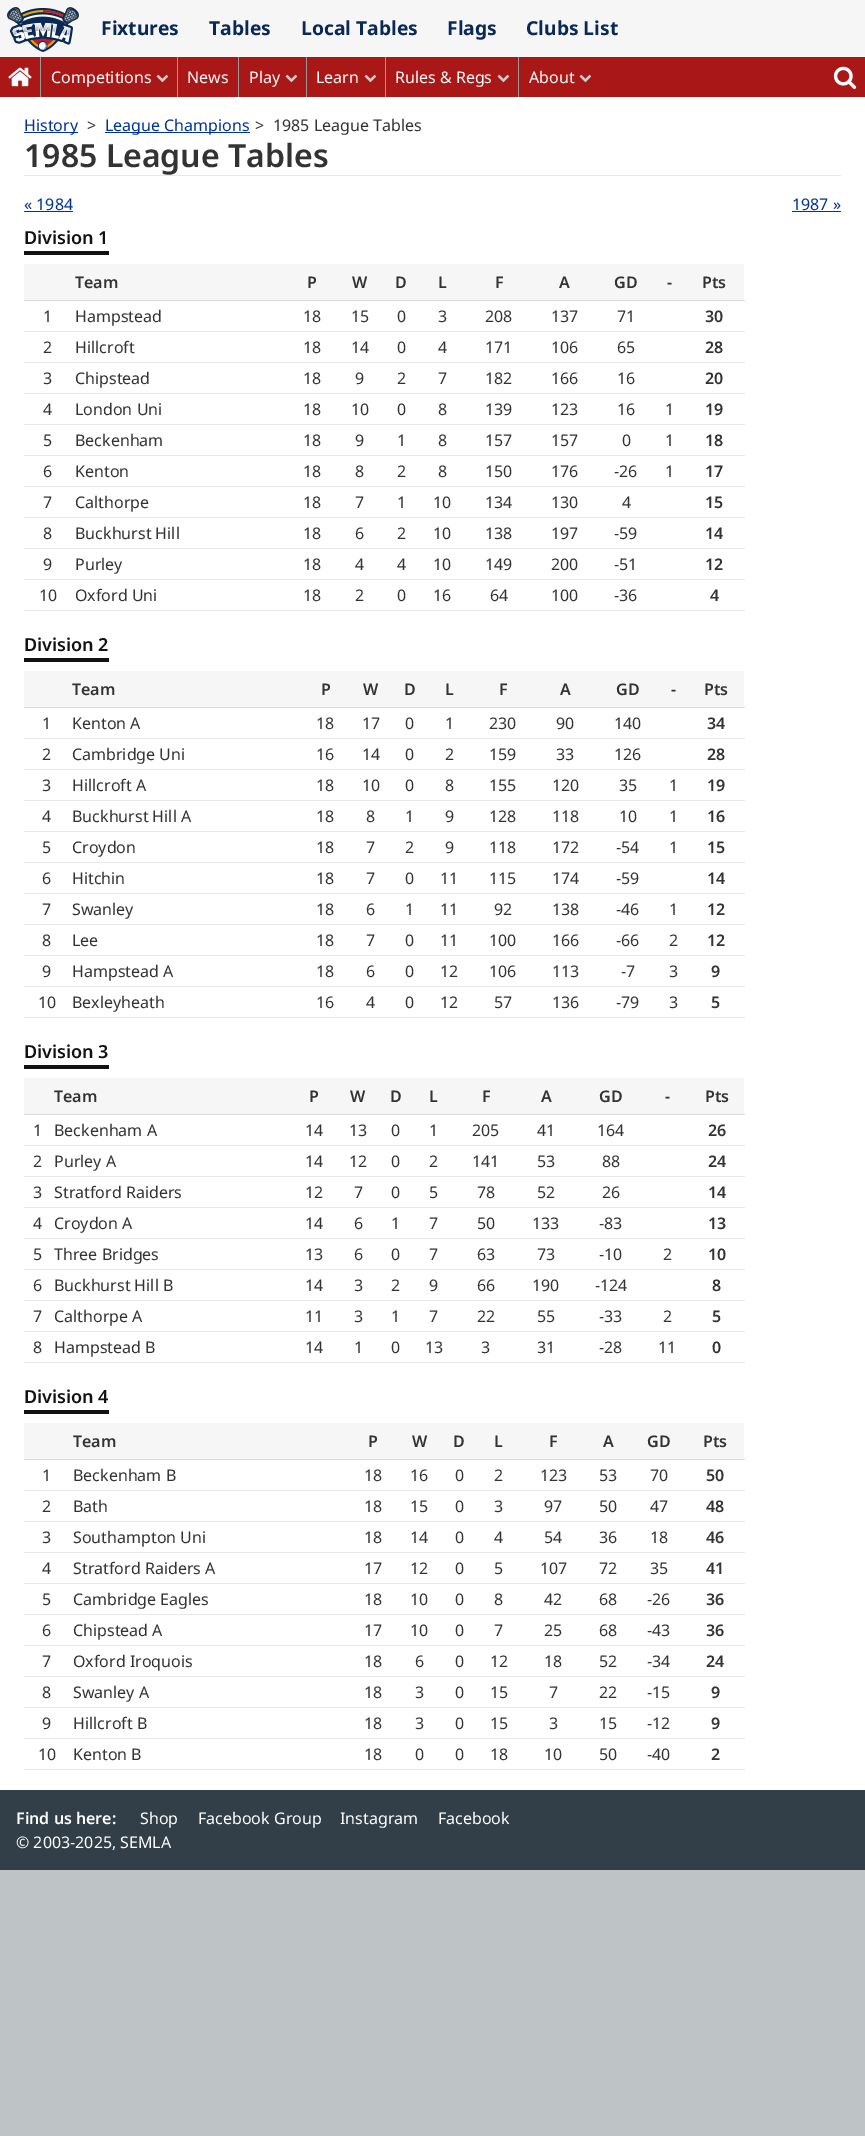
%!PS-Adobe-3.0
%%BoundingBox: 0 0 865 2136
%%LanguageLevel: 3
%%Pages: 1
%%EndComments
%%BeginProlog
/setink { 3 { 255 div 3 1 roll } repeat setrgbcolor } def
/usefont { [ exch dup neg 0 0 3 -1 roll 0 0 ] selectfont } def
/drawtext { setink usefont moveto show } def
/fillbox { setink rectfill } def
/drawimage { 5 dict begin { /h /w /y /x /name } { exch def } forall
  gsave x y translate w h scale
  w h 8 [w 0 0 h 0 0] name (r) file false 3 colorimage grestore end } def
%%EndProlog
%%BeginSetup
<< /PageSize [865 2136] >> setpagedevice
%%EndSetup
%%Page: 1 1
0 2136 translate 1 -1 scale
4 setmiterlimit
0 0 865 2136 190 195 198 fillbox
0 97 865 1693 255 255 255 fillbox
0 0 865 57 246 246 246 fillbox
(assets/img1.rgb) 7 7 72 45 drawimage
(Fixtures) 101 35 /NotoSans-Bold 19.25 9 42 86 drawtext
(Tables) 209 35 /NotoSans-Bold 19.25 9 42 86 drawtext
(Local Tables) 301 35 /NotoSans-Bold 19.25 9 42 86 drawtext
(Flags) 447 35 /NotoSans-Bold 19.25 9 42 86 drawtext
(Clubs List) 526 35 /NotoSans-Bold 19.25 9 42 86 drawtext
0 57 865 40 169 23 23 fillbox
(assets/img2.rgb) 8 67 24 20 drawimage
40 57 1 40 153 153 153 fillbox
(assets/img3.rgb) 156 74 13 9 drawimage
(Competitions) 51 83 /NotoSans-Regular 16 255 255 255 drawtext
177 57 1 40 153 153 153 fillbox
(News) 187 83 /NotoSans-Regular 16 255 255 255 drawtext
238 57 1 40 153 153 153 fillbox
(assets/img3.rgb) 285 74 13 9 drawimage
(Play) 249 83 /NotoSans-Regular 16 255 255 255 drawtext
306 57 1 40 153 153 153 fillbox
(assets/img3.rgb) 364 74 13 9 drawimage
(Learn) 316 83 /NotoSans-Regular 16 255 255 255 drawtext
385 57 1 40 153 153 153 fillbox
(assets/img3.rgb) 497 74 13 9 drawimage
(Rules & Regs) 395 83 /NotoSans-Regular 16 255 255 255 drawtext
518 57 1 40 153 153 153 fillbox
(assets/img3.rgb) 579 74 13 9 drawimage
(About) 529 83 /NotoSans-Regular 16 255 255 255 drawtext
(assets/img4.rgb) 833 66 24 23 drawimage
24 132 54 1 0 51 153 fillbox
(History) 24 131 /NotoSans-Regular 16 0 51 153 drawtext
(>) 87 131 /NotoSans-Regular 16 51 51 51 drawtext
105 132 145 1 0 51 153 fillbox
(League Champions) 105 131 /NotoSans-Regular 16 0 51 153 drawtext
(>) 255 131 /NotoSans-Regular 16 51 51 51 drawtext
(1985 League Tables) 273 131 /NotoSans-Regular 16 51 51 51 drawtext
24 175 817 1 230 232 234 fillbox
(1985 League Tables) 24 167 /NotoSans-SemiBold 32 51 51 51 drawtext
(« 1984) 24 210 /NotoSans-Regular 16 0 51 153 drawtext
24 211 49 1 0 51 153 fillbox
(1987 ») 792 210 /NotoSans-Regular 16 0 51 153 drawtext
792 211 49 1 0 51 153 fillbox
24 251 85 4 18 18 18 fillbox
(Division 1) 24 244 /NotoSans-SemiBold 18 18 18 18 drawtext
24 264 720 36 246 246 246 fillbox
(Team) 75 288 /NotoSans-SemiBold 16 51 51 51 drawtext
(P) 307 288 /NotoSans-SemiBold 16 51 51 51 drawtext
(W) 352 288 /NotoSans-SemiBold 16 51 51 51 drawtext
(D) 395 288 /NotoSans-SemiBold 16 51 51 51 drawtext
(L) 438 288 /NotoSans-SemiBold 16 51 51 51 drawtext
(F) 495 288 /NotoSans-SemiBold 16 51 51 51 drawtext
(A) 559 288 /NotoSans-SemiBold 16 51 51 51 drawtext
(GD) 614 288 /NotoSans-SemiBold 16 51 51 51 drawtext
(-) 667 288 /NotoSans-SemiBold 16 51 51 51 drawtext
24 300 721 1 219 219 219 fillbox
(Pts) 702 288 /NotoSans-SemiBold 16 51 51 51 drawtext
(1) 43 322 /NotoSans-Regular 16 51 51 51 drawtext
(Hampstead) 75 322 /NotoSans-Regular 16 51 51 51 drawtext
(18) 303 322 /NotoSans-Regular 16 51 51 51 drawtext
(15) 351 322 /NotoSans-Regular 16 51 51 51 drawtext
(0) 397 322 /NotoSans-Regular 16 51 51 51 drawtext
(3) 438 322 /NotoSans-Regular 16 51 51 51 drawtext
(208) 485 322 /NotoSans-Regular 16 51 51 51 drawtext
(137) 551 322 /NotoSans-Regular 16 51 51 51 drawtext
(71) 617 322 /NotoSans-Regular 16 51 51 51 drawtext
24 331 721 1 230 232 234 fillbox
(30) 705 322 /NotoSans-SemiBold 16 51 51 51 drawtext
(2) 43 353 /NotoSans-Regular 16 51 51 51 drawtext
(Hillcroft) 75 353 /NotoSans-Regular 16 51 51 51 drawtext
(18) 303 353 /NotoSans-Regular 16 51 51 51 drawtext
(14) 351 353 /NotoSans-Regular 16 51 51 51 drawtext
(0) 397 353 /NotoSans-Regular 16 51 51 51 drawtext
(4) 438 353 /NotoSans-Regular 16 51 51 51 drawtext
(171) 485 353 /NotoSans-Regular 16 51 51 51 drawtext
(106) 551 353 /NotoSans-Regular 16 51 51 51 drawtext
(65) 617 353 /NotoSans-Regular 16 51 51 51 drawtext
24 362 721 1 230 232 234 fillbox
(28) 705 353 /NotoSans-SemiBold 16 51 51 51 drawtext
(3) 43 384 /NotoSans-Regular 16 51 51 51 drawtext
(Chipstead) 75 384 /NotoSans-Regular 16 51 51 51 drawtext
(18) 303 384 /NotoSans-Regular 16 51 51 51 drawtext
(9) 355 384 /NotoSans-Regular 16 51 51 51 drawtext
(2) 397 384 /NotoSans-Regular 16 51 51 51 drawtext
(7) 438 384 /NotoSans-Regular 16 51 51 51 drawtext
(182) 485 384 /NotoSans-Regular 16 51 51 51 drawtext
(166) 551 384 /NotoSans-Regular 16 51 51 51 drawtext
(16) 617 384 /NotoSans-Regular 16 51 51 51 drawtext
24 393 721 1 230 232 234 fillbox
(20) 705 384 /NotoSans-SemiBold 16 51 51 51 drawtext
(4) 43 415 /NotoSans-Regular 16 51 51 51 drawtext
(London Uni) 75 415 /NotoSans-Regular 16 51 51 51 drawtext
(18) 303 415 /NotoSans-Regular 16 51 51 51 drawtext
(10) 351 415 /NotoSans-Regular 16 51 51 51 drawtext
(0) 397 415 /NotoSans-Regular 16 51 51 51 drawtext
(8) 438 415 /NotoSans-Regular 16 51 51 51 drawtext
(139) 485 415 /NotoSans-Regular 16 51 51 51 drawtext
(123) 551 415 /NotoSans-Regular 16 51 51 51 drawtext
(16) 617 415 /NotoSans-Regular 16 51 51 51 drawtext
(1) 665 415 /NotoSans-Regular 16 51 51 51 drawtext
24 424 721 1 230 232 234 fillbox
(19) 705 415 /NotoSans-SemiBold 16 51 51 51 drawtext
(5) 43 446 /NotoSans-Regular 16 51 51 51 drawtext
(Beckenham) 75 446 /NotoSans-Regular 16 51 51 51 drawtext
(18) 303 446 /NotoSans-Regular 16 51 51 51 drawtext
(9) 355 446 /NotoSans-Regular 16 51 51 51 drawtext
(1) 397 446 /NotoSans-Regular 16 51 51 51 drawtext
(8) 438 446 /NotoSans-Regular 16 51 51 51 drawtext
(157) 485 446 /NotoSans-Regular 16 51 51 51 drawtext
(157) 551 446 /NotoSans-Regular 16 51 51 51 drawtext
(0) 622 446 /NotoSans-Regular 16 51 51 51 drawtext
(1) 665 446 /NotoSans-Regular 16 51 51 51 drawtext
24 455 721 1 230 232 234 fillbox
(18) 705 446 /NotoSans-SemiBold 16 51 51 51 drawtext
(6) 43 477 /NotoSans-Regular 16 51 51 51 drawtext
(Kenton) 75 477 /NotoSans-Regular 16 51 51 51 drawtext
(18) 303 477 /NotoSans-Regular 16 51 51 51 drawtext
(8) 355 477 /NotoSans-Regular 16 51 51 51 drawtext
(2) 397 477 /NotoSans-Regular 16 51 51 51 drawtext
(8) 438 477 /NotoSans-Regular 16 51 51 51 drawtext
(150) 485 477 /NotoSans-Regular 16 51 51 51 drawtext
(176) 551 477 /NotoSans-Regular 16 51 51 51 drawtext
(-26) 614 477 /NotoSans-Regular 16 51 51 51 drawtext
(1) 665 477 /NotoSans-Regular 16 51 51 51 drawtext
24 486 721 1 230 232 234 fillbox
(17) 705 477 /NotoSans-SemiBold 16 51 51 51 drawtext
(7) 43 508 /NotoSans-Regular 16 51 51 51 drawtext
(Calthorpe) 75 508 /NotoSans-Regular 16 51 51 51 drawtext
(18) 303 508 /NotoSans-Regular 16 51 51 51 drawtext
(7) 355 508 /NotoSans-Regular 16 51 51 51 drawtext
(1) 397 508 /NotoSans-Regular 16 51 51 51 drawtext
(10) 433 508 /NotoSans-Regular 16 51 51 51 drawtext
(134) 485 508 /NotoSans-Regular 16 51 51 51 drawtext
(130) 551 508 /NotoSans-Regular 16 51 51 51 drawtext
(4) 622 508 /NotoSans-Regular 16 51 51 51 drawtext
24 517 721 1 230 232 234 fillbox
(15) 705 508 /NotoSans-SemiBold 16 51 51 51 drawtext
(8) 43 539 /NotoSans-Regular 16 51 51 51 drawtext
(Buckhurst Hill) 75 539 /NotoSans-Regular 16 51 51 51 drawtext
(18) 303 539 /NotoSans-Regular 16 51 51 51 drawtext
(6) 355 539 /NotoSans-Regular 16 51 51 51 drawtext
(2) 397 539 /NotoSans-Regular 16 51 51 51 drawtext
(10) 433 539 /NotoSans-Regular 16 51 51 51 drawtext
(138) 485 539 /NotoSans-Regular 16 51 51 51 drawtext
(197) 551 539 /NotoSans-Regular 16 51 51 51 drawtext
(-59) 614 539 /NotoSans-Regular 16 51 51 51 drawtext
24 548 721 1 230 232 234 fillbox
(14) 705 539 /NotoSans-SemiBold 16 51 51 51 drawtext
(9) 43 570 /NotoSans-Regular 16 51 51 51 drawtext
(Purley) 75 570 /NotoSans-Regular 16 51 51 51 drawtext
(18) 303 570 /NotoSans-Regular 16 51 51 51 drawtext
(4) 355 570 /NotoSans-Regular 16 51 51 51 drawtext
(4) 397 570 /NotoSans-Regular 16 51 51 51 drawtext
(10) 433 570 /NotoSans-Regular 16 51 51 51 drawtext
(149) 485 570 /NotoSans-Regular 16 51 51 51 drawtext
(200) 551 570 /NotoSans-Regular 16 51 51 51 drawtext
(-51) 614 570 /NotoSans-Regular 16 51 51 51 drawtext
24 579 721 1 230 232 234 fillbox
(12) 705 570 /NotoSans-SemiBold 16 51 51 51 drawtext
(10) 39 601 /NotoSans-Regular 16 51 51 51 drawtext
(Oxford Uni) 75 601 /NotoSans-Regular 16 51 51 51 drawtext
(18) 303 601 /NotoSans-Regular 16 51 51 51 drawtext
(2) 355 601 /NotoSans-Regular 16 51 51 51 drawtext
(0) 397 601 /NotoSans-Regular 16 51 51 51 drawtext
(16) 433 601 /NotoSans-Regular 16 51 51 51 drawtext
(64) 490 601 /NotoSans-Regular 16 51 51 51 drawtext
(100) 551 601 /NotoSans-Regular 16 51 51 51 drawtext
(-36) 614 601 /NotoSans-Regular 16 51 51 51 drawtext
24 610 721 1 230 232 234 fillbox
(4) 710 601 /NotoSans-SemiBold 16 51 51 51 drawtext
24 658 85 4 18 18 18 fillbox
(Division 2) 24 651 /NotoSans-SemiBold 18 18 18 18 drawtext
24 671 720 36 246 246 246 fillbox
(Team) 72 695 /NotoSans-SemiBold 16 51 51 51 drawtext
(P) 321 695 /NotoSans-SemiBold 16 51 51 51 drawtext
(W) 363 695 /NotoSans-SemiBold 16 51 51 51 drawtext
(D) 404 695 /NotoSans-SemiBold 16 51 51 51 drawtext
(L) 445 695 /NotoSans-SemiBold 16 51 51 51 drawtext
(F) 499 695 /NotoSans-SemiBold 16 51 51 51 drawtext
(A) 560 695 /NotoSans-SemiBold 16 51 51 51 drawtext
(GD) 616 695 /NotoSans-SemiBold 16 51 51 51 drawtext
(-) 671 695 /NotoSans-SemiBold 16 51 51 51 drawtext
24 707 721 1 219 219 219 fillbox
(Pts) 704 695 /NotoSans-SemiBold 16 51 51 51 drawtext
(1) 42 729 /NotoSans-Regular 16 51 51 51 drawtext
(Kenton A) 72 729 /NotoSans-Regular 16 51 51 51 drawtext
(18) 316 729 /NotoSans-Regular 16 51 51 51 drawtext
(17) 362 729 /NotoSans-Regular 16 51 51 51 drawtext
(0) 405 729 /NotoSans-Regular 16 51 51 51 drawtext
(1) 445 729 /NotoSans-Regular 16 51 51 51 drawtext
(230) 489 729 /NotoSans-Regular 16 51 51 51 drawtext
(90) 556 729 /NotoSans-Regular 16 51 51 51 drawtext
(140) 614 729 /NotoSans-Regular 16 51 51 51 drawtext
24 738 721 1 230 232 234 fillbox
(34) 707 729 /NotoSans-SemiBold 16 51 51 51 drawtext
(2) 42 760 /NotoSans-Regular 16 51 51 51 drawtext
(Cambridge Uni) 72 760 /NotoSans-Regular 16 51 51 51 drawtext
(16) 316 760 /NotoSans-Regular 16 51 51 51 drawtext
(14) 362 760 /NotoSans-Regular 16 51 51 51 drawtext
(0) 405 760 /NotoSans-Regular 16 51 51 51 drawtext
(2) 445 760 /NotoSans-Regular 16 51 51 51 drawtext
(159) 489 760 /NotoSans-Regular 16 51 51 51 drawtext
(33) 556 760 /NotoSans-Regular 16 51 51 51 drawtext
(126) 614 760 /NotoSans-Regular 16 51 51 51 drawtext
24 769 721 1 230 232 234 fillbox
(28) 707 760 /NotoSans-SemiBold 16 51 51 51 drawtext
(3) 42 791 /NotoSans-Regular 16 51 51 51 drawtext
(Hillcroft A) 72 791 /NotoSans-Regular 16 51 51 51 drawtext
(18) 316 791 /NotoSans-Regular 16 51 51 51 drawtext
(10) 362 791 /NotoSans-Regular 16 51 51 51 drawtext
(0) 405 791 /NotoSans-Regular 16 51 51 51 drawtext
(8) 445 791 /NotoSans-Regular 16 51 51 51 drawtext
(155) 489 791 /NotoSans-Regular 16 51 51 51 drawtext
(120) 552 791 /NotoSans-Regular 16 51 51 51 drawtext
(35) 619 791 /NotoSans-Regular 16 51 51 51 drawtext
(1) 669 791 /NotoSans-Regular 16 51 51 51 drawtext
24 800 721 1 230 232 234 fillbox
(19) 707 791 /NotoSans-SemiBold 16 51 51 51 drawtext
(4) 42 822 /NotoSans-Regular 16 51 51 51 drawtext
(Buckhurst Hill A) 72 822 /NotoSans-Regular 16 51 51 51 drawtext
(18) 316 822 /NotoSans-Regular 16 51 51 51 drawtext
(8) 366 822 /NotoSans-Regular 16 51 51 51 drawtext
(1) 405 822 /NotoSans-Regular 16 51 51 51 drawtext
(9) 445 822 /NotoSans-Regular 16 51 51 51 drawtext
(128) 489 822 /NotoSans-Regular 16 51 51 51 drawtext
(118) 552 822 /NotoSans-Regular 16 51 51 51 drawtext
(10) 619 822 /NotoSans-Regular 16 51 51 51 drawtext
(1) 669 822 /NotoSans-Regular 16 51 51 51 drawtext
24 831 721 1 230 232 234 fillbox
(16) 707 822 /NotoSans-SemiBold 16 51 51 51 drawtext
(5) 42 853 /NotoSans-Regular 16 51 51 51 drawtext
(Croydon) 72 853 /NotoSans-Regular 16 51 51 51 drawtext
(18) 316 853 /NotoSans-Regular 16 51 51 51 drawtext
(7) 366 853 /NotoSans-Regular 16 51 51 51 drawtext
(2) 405 853 /NotoSans-Regular 16 51 51 51 drawtext
(9) 445 853 /NotoSans-Regular 16 51 51 51 drawtext
(118) 489 853 /NotoSans-Regular 16 51 51 51 drawtext
(172) 552 853 /NotoSans-Regular 16 51 51 51 drawtext
(-54) 616 853 /NotoSans-Regular 16 51 51 51 drawtext
(1) 669 853 /NotoSans-Regular 16 51 51 51 drawtext
24 862 721 1 230 232 234 fillbox
(15) 707 853 /NotoSans-SemiBold 16 51 51 51 drawtext
(6) 42 884 /NotoSans-Regular 16 51 51 51 drawtext
(Hitchin) 72 884 /NotoSans-Regular 16 51 51 51 drawtext
(18) 316 884 /NotoSans-Regular 16 51 51 51 drawtext
(7) 366 884 /NotoSans-Regular 16 51 51 51 drawtext
(0) 405 884 /NotoSans-Regular 16 51 51 51 drawtext
(11) 440 884 /NotoSans-Regular 16 51 51 51 drawtext
(115) 489 884 /NotoSans-Regular 16 51 51 51 drawtext
(174) 552 884 /NotoSans-Regular 16 51 51 51 drawtext
(-59) 616 884 /NotoSans-Regular 16 51 51 51 drawtext
24 893 721 1 230 232 234 fillbox
(14) 707 884 /NotoSans-SemiBold 16 51 51 51 drawtext
(7) 42 915 /NotoSans-Regular 16 51 51 51 drawtext
(Swanley) 72 915 /NotoSans-Regular 16 51 51 51 drawtext
(18) 316 915 /NotoSans-Regular 16 51 51 51 drawtext
(6) 366 915 /NotoSans-Regular 16 51 51 51 drawtext
(1) 405 915 /NotoSans-Regular 16 51 51 51 drawtext
(11) 440 915 /NotoSans-Regular 16 51 51 51 drawtext
(92) 494 915 /NotoSans-Regular 16 51 51 51 drawtext
(138) 552 915 /NotoSans-Regular 16 51 51 51 drawtext
(-46) 616 915 /NotoSans-Regular 16 51 51 51 drawtext
(1) 669 915 /NotoSans-Regular 16 51 51 51 drawtext
24 924 721 1 230 232 234 fillbox
(12) 707 915 /NotoSans-SemiBold 16 51 51 51 drawtext
(8) 42 946 /NotoSans-Regular 16 51 51 51 drawtext
(Lee) 72 946 /NotoSans-Regular 16 51 51 51 drawtext
(18) 316 946 /NotoSans-Regular 16 51 51 51 drawtext
(7) 366 946 /NotoSans-Regular 16 51 51 51 drawtext
(0) 405 946 /NotoSans-Regular 16 51 51 51 drawtext
(11) 440 946 /NotoSans-Regular 16 51 51 51 drawtext
(100) 489 946 /NotoSans-Regular 16 51 51 51 drawtext
(166) 552 946 /NotoSans-Regular 16 51 51 51 drawtext
(-66) 616 946 /NotoSans-Regular 16 51 51 51 drawtext
(2) 669 946 /NotoSans-Regular 16 51 51 51 drawtext
24 955 721 1 230 232 234 fillbox
(12) 707 946 /NotoSans-SemiBold 16 51 51 51 drawtext
(9) 42 977 /NotoSans-Regular 16 51 51 51 drawtext
(Hampstead A) 72 977 /NotoSans-Regular 16 51 51 51 drawtext
(18) 316 977 /NotoSans-Regular 16 51 51 51 drawtext
(6) 366 977 /NotoSans-Regular 16 51 51 51 drawtext
(0) 405 977 /NotoSans-Regular 16 51 51 51 drawtext
(12) 440 977 /NotoSans-Regular 16 51 51 51 drawtext
(106) 489 977 /NotoSans-Regular 16 51 51 51 drawtext
(113) 552 977 /NotoSans-Regular 16 51 51 51 drawtext
(-7) 621 977 /NotoSans-Regular 16 51 51 51 drawtext
(3) 669 977 /NotoSans-Regular 16 51 51 51 drawtext
24 986 721 1 230 232 234 fillbox
(9) 711 977 /NotoSans-SemiBold 16 51 51 51 drawtext
(10) 38 1008 /NotoSans-Regular 16 51 51 51 drawtext
(Bexleyheath) 72 1008 /NotoSans-Regular 16 51 51 51 drawtext
(16) 316 1008 /NotoSans-Regular 16 51 51 51 drawtext
(4) 366 1008 /NotoSans-Regular 16 51 51 51 drawtext
(0) 405 1008 /NotoSans-Regular 16 51 51 51 drawtext
(12) 440 1008 /NotoSans-Regular 16 51 51 51 drawtext
(57) 494 1008 /NotoSans-Regular 16 51 51 51 drawtext
(136) 552 1008 /NotoSans-Regular 16 51 51 51 drawtext
(-79) 616 1008 /NotoSans-Regular 16 51 51 51 drawtext
(3) 669 1008 /NotoSans-Regular 16 51 51 51 drawtext
24 1017 721 1 230 232 234 fillbox
(5) 711 1008 /NotoSans-SemiBold 16 51 51 51 drawtext
24 1065 85 4 18 18 18 fillbox
(Division 3) 24 1058 /NotoSans-SemiBold 18 18 18 18 drawtext
24 1078 720 36 246 246 246 fillbox
(Team) 54 1102 /NotoSans-SemiBold 16 51 51 51 drawtext
(P) 309 1102 /NotoSans-SemiBold 16 51 51 51 drawtext
(W) 350 1102 /NotoSans-SemiBold 16 51 51 51 drawtext
(D) 390 1102 /NotoSans-SemiBold 16 51 51 51 drawtext
(L) 429 1102 /NotoSans-SemiBold 16 51 51 51 drawtext
(F) 482 1102 /NotoSans-SemiBold 16 51 51 51 drawtext
(A) 541 1102 /NotoSans-SemiBold 16 51 51 51 drawtext
(GD) 599 1102 /NotoSans-SemiBold 16 51 51 51 drawtext
(-) 665 1102 /NotoSans-SemiBold 16 51 51 51 drawtext
24 1114 721 1 219 219 219 fillbox
(Pts) 705 1102 /NotoSans-SemiBold 16 51 51 51 drawtext
(1) 33 1136 /NotoSans-Regular 16 51 51 51 drawtext
(Beckenham A) 54 1136 /NotoSans-Regular 16 51 51 51 drawtext
(14) 305 1136 /NotoSans-Regular 16 51 51 51 drawtext
(13) 349 1136 /NotoSans-Regular 16 51 51 51 drawtext
(0) 391 1136 /NotoSans-Regular 16 51 51 51 drawtext
(1) 429 1136 /NotoSans-Regular 16 51 51 51 drawtext
(205) 472 1136 /NotoSans-Regular 16 51 51 51 drawtext
(41) 537 1136 /NotoSans-Regular 16 51 51 51 drawtext
(164) 597 1136 /NotoSans-Regular 16 51 51 51 drawtext
24 1145 721 1 230 232 234 fillbox
(26) 708 1136 /NotoSans-SemiBold 16 51 51 51 drawtext
(2) 33 1167 /NotoSans-Regular 16 51 51 51 drawtext
(Purley A) 54 1167 /NotoSans-Regular 16 51 51 51 drawtext
(14) 305 1167 /NotoSans-Regular 16 51 51 51 drawtext
(12) 349 1167 /NotoSans-Regular 16 51 51 51 drawtext
(0) 391 1167 /NotoSans-Regular 16 51 51 51 drawtext
(2) 429 1167 /NotoSans-Regular 16 51 51 51 drawtext
(141) 472 1167 /NotoSans-Regular 16 51 51 51 drawtext
(53) 537 1167 /NotoSans-Regular 16 51 51 51 drawtext
(88) 602 1167 /NotoSans-Regular 16 51 51 51 drawtext
24 1176 721 1 230 232 234 fillbox
(24) 708 1167 /NotoSans-SemiBold 16 51 51 51 drawtext
(3) 33 1198 /NotoSans-Regular 16 51 51 51 drawtext
(Stratford Raiders) 54 1198 /NotoSans-Regular 16 51 51 51 drawtext
(12) 305 1198 /NotoSans-Regular 16 51 51 51 drawtext
(7) 354 1198 /NotoSans-Regular 16 51 51 51 drawtext
(0) 391 1198 /NotoSans-Regular 16 51 51 51 drawtext
(5) 429 1198 /NotoSans-Regular 16 51 51 51 drawtext
(78) 477 1198 /NotoSans-Regular 16 51 51 51 drawtext
(52) 537 1198 /NotoSans-Regular 16 51 51 51 drawtext
(26) 602 1198 /NotoSans-Regular 16 51 51 51 drawtext
24 1207 721 1 230 232 234 fillbox
(14) 708 1198 /NotoSans-SemiBold 16 51 51 51 drawtext
(4) 33 1229 /NotoSans-Regular 16 51 51 51 drawtext
(Croydon A) 54 1229 /NotoSans-Regular 16 51 51 51 drawtext
(14) 305 1229 /NotoSans-Regular 16 51 51 51 drawtext
(6) 354 1229 /NotoSans-Regular 16 51 51 51 drawtext
(1) 391 1229 /NotoSans-Regular 16 51 51 51 drawtext
(7) 429 1229 /NotoSans-Regular 16 51 51 51 drawtext
(50) 477 1229 /NotoSans-Regular 16 51 51 51 drawtext
(133) 532 1229 /NotoSans-Regular 16 51 51 51 drawtext
(-83) 599 1229 /NotoSans-Regular 16 51 51 51 drawtext
24 1238 721 1 230 232 234 fillbox
(13) 708 1229 /NotoSans-SemiBold 16 51 51 51 drawtext
(5) 33 1260 /NotoSans-Regular 16 51 51 51 drawtext
(Three Bridges) 54 1260 /NotoSans-Regular 16 51 51 51 drawtext
(13) 305 1260 /NotoSans-Regular 16 51 51 51 drawtext
(6) 354 1260 /NotoSans-Regular 16 51 51 51 drawtext
(0) 391 1260 /NotoSans-Regular 16 51 51 51 drawtext
(7) 429 1260 /NotoSans-Regular 16 51 51 51 drawtext
(63) 477 1260 /NotoSans-Regular 16 51 51 51 drawtext
(73) 537 1260 /NotoSans-Regular 16 51 51 51 drawtext
(-10) 599 1260 /NotoSans-Regular 16 51 51 51 drawtext
(2) 663 1260 /NotoSans-Regular 16 51 51 51 drawtext
24 1269 721 1 230 232 234 fillbox
(10) 708 1260 /NotoSans-SemiBold 16 51 51 51 drawtext
(6) 33 1291 /NotoSans-Regular 16 51 51 51 drawtext
(Buckhurst Hill B) 54 1291 /NotoSans-Regular 16 51 51 51 drawtext
(14) 305 1291 /NotoSans-Regular 16 51 51 51 drawtext
(3) 354 1291 /NotoSans-Regular 16 51 51 51 drawtext
(2) 391 1291 /NotoSans-Regular 16 51 51 51 drawtext
(9) 429 1291 /NotoSans-Regular 16 51 51 51 drawtext
(66) 477 1291 /NotoSans-Regular 16 51 51 51 drawtext
(190) 532 1291 /NotoSans-Regular 16 51 51 51 drawtext
(-124) 595 1291 /NotoSans-Regular 16 51 51 51 drawtext
24 1300 721 1 230 232 234 fillbox
(8) 712 1291 /NotoSans-SemiBold 16 51 51 51 drawtext
(7) 33 1322 /NotoSans-Regular 16 51 51 51 drawtext
(Calthorpe A) 54 1322 /NotoSans-Regular 16 51 51 51 drawtext
(11) 305 1322 /NotoSans-Regular 16 51 51 51 drawtext
(3) 354 1322 /NotoSans-Regular 16 51 51 51 drawtext
(1) 391 1322 /NotoSans-Regular 16 51 51 51 drawtext
(7) 429 1322 /NotoSans-Regular 16 51 51 51 drawtext
(22) 477 1322 /NotoSans-Regular 16 51 51 51 drawtext
(55) 537 1322 /NotoSans-Regular 16 51 51 51 drawtext
(-33) 599 1322 /NotoSans-Regular 16 51 51 51 drawtext
(2) 663 1322 /NotoSans-Regular 16 51 51 51 drawtext
24 1331 721 1 230 232 234 fillbox
(5) 712 1322 /NotoSans-SemiBold 16 51 51 51 drawtext
(8) 33 1353 /NotoSans-Regular 16 51 51 51 drawtext
(Hampstead B) 54 1353 /NotoSans-Regular 16 51 51 51 drawtext
(14) 305 1353 /NotoSans-Regular 16 51 51 51 drawtext
(1) 354 1353 /NotoSans-Regular 16 51 51 51 drawtext
(0) 391 1353 /NotoSans-Regular 16 51 51 51 drawtext
(13) 425 1353 /NotoSans-Regular 16 51 51 51 drawtext
(3) 481 1353 /NotoSans-Regular 16 51 51 51 drawtext
(31) 537 1353 /NotoSans-Regular 16 51 51 51 drawtext
(-28) 599 1353 /NotoSans-Regular 16 51 51 51 drawtext
(11) 658 1353 /NotoSans-Regular 16 51 51 51 drawtext
24 1362 721 1 230 232 234 fillbox
(0) 712 1353 /NotoSans-SemiBold 16 51 51 51 drawtext
24 1410 85 4 18 18 18 fillbox
(Division 4) 24 1403 /NotoSans-SemiBold 18 18 18 18 drawtext
24 1423 720 36 246 246 246 fillbox
(Team) 73 1447 /NotoSans-SemiBold 16 51 51 51 drawtext
(P) 368 1447 /NotoSans-SemiBold 16 51 51 51 drawtext
(W) 412 1447 /NotoSans-SemiBold 16 51 51 51 drawtext
(D) 453 1447 /NotoSans-SemiBold 16 51 51 51 drawtext
(L) 494 1447 /NotoSans-SemiBold 16 51 51 51 drawtext
(F) 549 1447 /NotoSans-SemiBold 16 51 51 51 drawtext
(A) 603 1447 /NotoSans-SemiBold 16 51 51 51 drawtext
(GD) 647 1447 /NotoSans-SemiBold 16 51 51 51 drawtext
24 1459 721 1 219 219 219 fillbox
(Pts) 703 1447 /NotoSans-SemiBold 16 51 51 51 drawtext
(1) 42 1481 /NotoSans-Regular 16 51 51 51 drawtext
(Beckenham B) 73 1481 /NotoSans-Regular 16 51 51 51 drawtext
(18) 364 1481 /NotoSans-Regular 16 51 51 51 drawtext
(16) 410 1481 /NotoSans-Regular 16 51 51 51 drawtext
(0) 455 1481 /NotoSans-Regular 16 51 51 51 drawtext
(2) 494 1481 /NotoSans-Regular 16 51 51 51 drawtext
(123) 540 1481 /NotoSans-Regular 16 51 51 51 drawtext
(53) 599 1481 /NotoSans-Regular 16 51 51 51 drawtext
(70) 650 1481 /NotoSans-Regular 16 51 51 51 drawtext
24 1490 721 1 230 232 234 fillbox
(50) 706 1481 /NotoSans-SemiBold 16 51 51 51 drawtext
(2) 42 1512 /NotoSans-Regular 16 51 51 51 drawtext
(Bath) 73 1512 /NotoSans-Regular 16 51 51 51 drawtext
(18) 364 1512 /NotoSans-Regular 16 51 51 51 drawtext
(15) 410 1512 /NotoSans-Regular 16 51 51 51 drawtext
(0) 455 1512 /NotoSans-Regular 16 51 51 51 drawtext
(3) 494 1512 /NotoSans-Regular 16 51 51 51 drawtext
(97) 544 1512 /NotoSans-Regular 16 51 51 51 drawtext
(50) 599 1512 /NotoSans-Regular 16 51 51 51 drawtext
(47) 650 1512 /NotoSans-Regular 16 51 51 51 drawtext
24 1521 721 1 230 232 234 fillbox
(48) 706 1512 /NotoSans-SemiBold 16 51 51 51 drawtext
(3) 42 1543 /NotoSans-Regular 16 51 51 51 drawtext
(Southampton Uni) 73 1543 /NotoSans-Regular 16 51 51 51 drawtext
(18) 364 1543 /NotoSans-Regular 16 51 51 51 drawtext
(14) 410 1543 /NotoSans-Regular 16 51 51 51 drawtext
(0) 455 1543 /NotoSans-Regular 16 51 51 51 drawtext
(4) 494 1543 /NotoSans-Regular 16 51 51 51 drawtext
(54) 544 1543 /NotoSans-Regular 16 51 51 51 drawtext
(36) 599 1543 /NotoSans-Regular 16 51 51 51 drawtext
(18) 650 1543 /NotoSans-Regular 16 51 51 51 drawtext
24 1552 721 1 230 232 234 fillbox
(46) 706 1543 /NotoSans-SemiBold 16 51 51 51 drawtext
(4) 42 1574 /NotoSans-Regular 16 51 51 51 drawtext
(Stratford Raiders A) 73 1574 /NotoSans-Regular 16 51 51 51 drawtext
(17) 364 1574 /NotoSans-Regular 16 51 51 51 drawtext
(12) 410 1574 /NotoSans-Regular 16 51 51 51 drawtext
(0) 455 1574 /NotoSans-Regular 16 51 51 51 drawtext
(5) 494 1574 /NotoSans-Regular 16 51 51 51 drawtext
(107) 540 1574 /NotoSans-Regular 16 51 51 51 drawtext
(72) 599 1574 /NotoSans-Regular 16 51 51 51 drawtext
(35) 650 1574 /NotoSans-Regular 16 51 51 51 drawtext
24 1583 721 1 230 232 234 fillbox
(41) 706 1574 /NotoSans-SemiBold 16 51 51 51 drawtext
(5) 42 1605 /NotoSans-Regular 16 51 51 51 drawtext
(Cambridge Eagles) 73 1605 /NotoSans-Regular 16 51 51 51 drawtext
(18) 364 1605 /NotoSans-Regular 16 51 51 51 drawtext
(10) 410 1605 /NotoSans-Regular 16 51 51 51 drawtext
(0) 455 1605 /NotoSans-Regular 16 51 51 51 drawtext
(8) 494 1605 /NotoSans-Regular 16 51 51 51 drawtext
(42) 544 1605 /NotoSans-Regular 16 51 51 51 drawtext
(68) 599 1605 /NotoSans-Regular 16 51 51 51 drawtext
(-26) 647 1605 /NotoSans-Regular 16 51 51 51 drawtext
24 1614 721 1 230 232 234 fillbox
(36) 706 1605 /NotoSans-SemiBold 16 51 51 51 drawtext
(6) 42 1636 /NotoSans-Regular 16 51 51 51 drawtext
(Chipstead A) 73 1636 /NotoSans-Regular 16 51 51 51 drawtext
(17) 364 1636 /NotoSans-Regular 16 51 51 51 drawtext
(10) 410 1636 /NotoSans-Regular 16 51 51 51 drawtext
(0) 455 1636 /NotoSans-Regular 16 51 51 51 drawtext
(7) 494 1636 /NotoSans-Regular 16 51 51 51 drawtext
(25) 544 1636 /NotoSans-Regular 16 51 51 51 drawtext
(68) 599 1636 /NotoSans-Regular 16 51 51 51 drawtext
(-43) 647 1636 /NotoSans-Regular 16 51 51 51 drawtext
24 1645 721 1 230 232 234 fillbox
(36) 706 1636 /NotoSans-SemiBold 16 51 51 51 drawtext
(7) 42 1667 /NotoSans-Regular 16 51 51 51 drawtext
(Oxford Iroquois) 73 1667 /NotoSans-Regular 16 51 51 51 drawtext
(18) 364 1667 /NotoSans-Regular 16 51 51 51 drawtext
(6) 415 1667 /NotoSans-Regular 16 51 51 51 drawtext
(0) 455 1667 /NotoSans-Regular 16 51 51 51 drawtext
(12) 490 1667 /NotoSans-Regular 16 51 51 51 drawtext
(18) 544 1667 /NotoSans-Regular 16 51 51 51 drawtext
(52) 599 1667 /NotoSans-Regular 16 51 51 51 drawtext
(-34) 647 1667 /NotoSans-Regular 16 51 51 51 drawtext
24 1676 721 1 230 232 234 fillbox
(24) 706 1667 /NotoSans-SemiBold 16 51 51 51 drawtext
(8) 42 1698 /NotoSans-Regular 16 51 51 51 drawtext
(Swanley A) 73 1698 /NotoSans-Regular 16 51 51 51 drawtext
(18) 364 1698 /NotoSans-Regular 16 51 51 51 drawtext
(3) 415 1698 /NotoSans-Regular 16 51 51 51 drawtext
(0) 455 1698 /NotoSans-Regular 16 51 51 51 drawtext
(15) 490 1698 /NotoSans-Regular 16 51 51 51 drawtext
(7) 549 1698 /NotoSans-Regular 16 51 51 51 drawtext
(22) 599 1698 /NotoSans-Regular 16 51 51 51 drawtext
(-15) 647 1698 /NotoSans-Regular 16 51 51 51 drawtext
24 1707 721 1 230 232 234 fillbox
(9) 711 1698 /NotoSans-SemiBold 16 51 51 51 drawtext
(9) 42 1729 /NotoSans-Regular 16 51 51 51 drawtext
(Hillcroft B) 73 1729 /NotoSans-Regular 16 51 51 51 drawtext
(18) 364 1729 /NotoSans-Regular 16 51 51 51 drawtext
(3) 415 1729 /NotoSans-Regular 16 51 51 51 drawtext
(0) 455 1729 /NotoSans-Regular 16 51 51 51 drawtext
(15) 490 1729 /NotoSans-Regular 16 51 51 51 drawtext
(3) 549 1729 /NotoSans-Regular 16 51 51 51 drawtext
(15) 599 1729 /NotoSans-Regular 16 51 51 51 drawtext
(-12) 647 1729 /NotoSans-Regular 16 51 51 51 drawtext
24 1738 721 1 230 232 234 fillbox
(9) 711 1729 /NotoSans-SemiBold 16 51 51 51 drawtext
(10) 38 1760 /NotoSans-Regular 16 51 51 51 drawtext
(Kenton B) 73 1760 /NotoSans-Regular 16 51 51 51 drawtext
(18) 364 1760 /NotoSans-Regular 16 51 51 51 drawtext
(0) 415 1760 /NotoSans-Regular 16 51 51 51 drawtext
(0) 455 1760 /NotoSans-Regular 16 51 51 51 drawtext
(18) 490 1760 /NotoSans-Regular 16 51 51 51 drawtext
(10) 544 1760 /NotoSans-Regular 16 51 51 51 drawtext
(50) 599 1760 /NotoSans-Regular 16 51 51 51 drawtext
(-40) 647 1760 /NotoSans-Regular 16 51 51 51 drawtext
24 1769 721 1 230 232 234 fillbox
(2) 711 1760 /NotoSans-SemiBold 16 51 51 51 drawtext
0 1790 865 80 51 63 72 fillbox
(Find us here:) 16 1824 /NotoSans-SemiBold 16 255 255 255 drawtext
(Shop) 140 1824 /NotoSans-Regular 16 255 255 255 drawtext
(Facebook Group) 198 1824 /NotoSans-Regular 16 255 255 255 drawtext
(Instagram) 340 1824 /NotoSans-Regular 16 255 255 255 drawtext
(Facebook) 438 1824 /NotoSans-Regular 16 255 255 255 drawtext
(© 2003-2025, SEMLA) 16 1848 /NotoSans-Regular 16 255 255 255 drawtext
showpage
%%EOF
